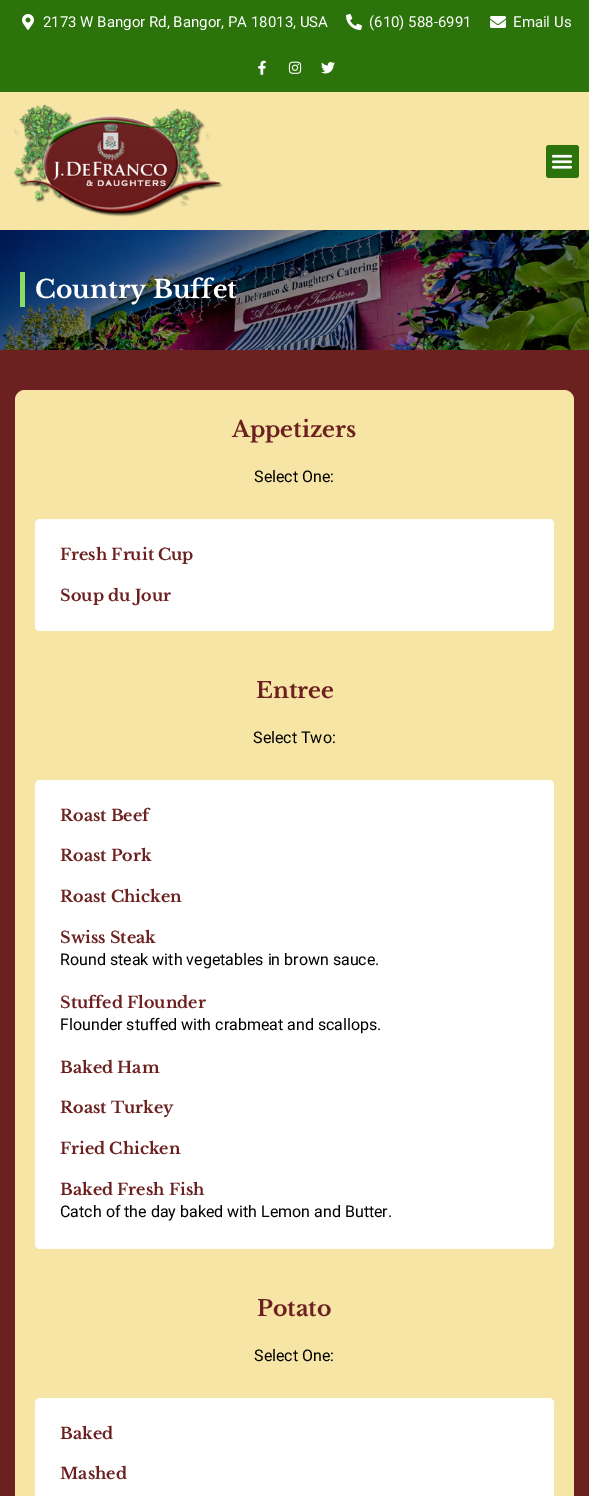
%!PS-Adobe-3.0
%%BoundingBox: 0 0 589 1496
%%LanguageLevel: 3
%%Pages: 1
%%EndComments
%%BeginProlog
/setink { 3 { 255 div 3 1 roll } repeat setrgbcolor } def
/usefont { [ exch dup neg 0 0 3 -1 roll 0 0 ] selectfont } def
/drawtext { setink usefont moveto show } def
/fillbox { setink rectfill } def
/rrect { 5 dict begin { /r /h /w /y /x } { exch def } forall
  x r add y moveto x w add y 2 copy h add r arct x w add y h add x 1 index r arct
  x y h add x y r arct x y 2 copy exch w add exch r arct closepath end } def
/drawimage { 5 dict begin { /h /w /y /x /name } { exch def } forall
  gsave x y translate w h scale
  w h 8 [w 0 0 h 0 0] name (r) file false 3 colorimage grestore end } def
%%EndProlog
%%BeginSetup
<< /PageSize [589 1496] >> setpagedevice
%%EndSetup
%%Page: 1 1
0 1496 translate 1 -1 scale
4 setmiterlimit
0 0 589 1496 43 115 10 fillbox
(assets/img1.rgb) 22 14 12 16 drawimage
(2173 W Bangor Rd, Bangor, PA 18013, USA) 43 27 /Roboto-Regular 15 255 255 255 drawtext
(assets/img2.rgb) 346 14 16 16 drawimage
(\(610\) 588-6991) 369 27 /Roboto-Regular 15 255 255 255 drawtext
(assets/img3.rgb) 490 16 16 12 drawimage
(Email Us) 513 27 /Roboto-Regular 15 255 255 255 drawtext
(assets/img4.rgb) 258 60 8 15 drawimage
(assets/img5.rgb) 288 61 14 13 drawimage
(assets/img6.rgb) 321 62 14 12 drawimage
0 92 589 138 246 229 164 fillbox
(assets/img7.rgb) 13 104 210 113 drawimage
43 115 10 setink
546 145 33 33 3 rrect fill
(assets/img8.rgb) 551 154 22 15 drawimage
(assets/img9.rgb) 0 230 589 120 drawimage
20 272 5 35 138 218 100 fillbox
(Country Buffet) 35 298 /LibreBaskerville-Bold 25 255 255 255 drawtext
0 350 589 1146 108 32 32 fillbox
246 229 164 setink
15 390 559 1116 10 rrect fill
(Appetizers) 232 437 /LibreBaskerville-Bold 22 108 32 32 drawtext
(Select One:) 254 482 /Roboto-Regular 16 0 0 0 drawtext
255 255 255 setink
35 519 519 112 5 rrect fill
(Fresh Fruit Cup) 60 560 /LibreBaskerville-Bold 16 108 32 32 drawtext
(Soup du Jour) 60 601 /LibreBaskerville-Bold 16 108 32 32 drawtext
(Entree) 256 698 /LibreBaskerville-Bold 22 108 32 32 drawtext
(Select Two:) 253 743 /Roboto-Regular 16 0 0 0 drawtext
255 255 255 setink
35 780 519 469 5 rrect fill
(Roast Beef) 60 821 /LibreBaskerville-Bold 16 108 32 32 drawtext
(Roast Pork) 60 861 /LibreBaskerville-Bold 16 108 32 32 drawtext
(Roast Chicken) 60 902 /LibreBaskerville-Bold 16 108 32 32 drawtext
(Swiss Steak) 60 943 /LibreBaskerville-Bold 16 108 32 32 drawtext
(Round steak with vegetables in brown sauce.) 60 965 /Roboto-Regular 16 0 0 0 drawtext
(Stuffed Flounder) 60 1008 /LibreBaskerville-Bold 16 108 32 32 drawtext
(Flounder stuffed with crabmeat and scallops.) 60 1030 /Roboto-Regular 16 0 0 0 drawtext
(Baked Ham) 60 1073 /LibreBaskerville-Bold 16 108 32 32 drawtext
(Roast Turkey) 60 1113 /LibreBaskerville-Bold 16 108 32 32 drawtext
(Fried Chicken) 60 1154 /LibreBaskerville-Bold 16 108 32 32 drawtext
(Baked Fresh Fish) 60 1195 /LibreBaskerville-Bold 16 108 32 32 drawtext
(Catch of the day baked with Lemon and Butter.) 60 1217 /Roboto-Regular 16 0 0 0 drawtext
(Potato) 257 1316 /LibreBaskerville-Bold 22 108 32 32 drawtext
(Select One:) 254 1361 /Roboto-Regular 16 0 0 0 drawtext
255 255 255 setink
35 1398 519 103 5 rrect fill
(Baked) 60 1439 /LibreBaskerville-Bold 16 108 32 32 drawtext
(Mashed) 60 1479 /LibreBaskerville-Bold 16 108 32 32 drawtext
showpage
%%EOF
